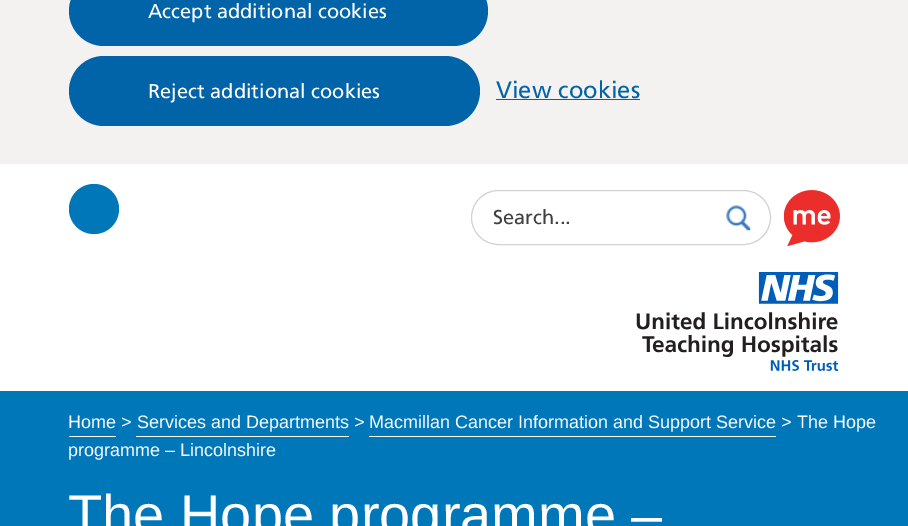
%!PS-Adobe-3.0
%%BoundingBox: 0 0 908 526
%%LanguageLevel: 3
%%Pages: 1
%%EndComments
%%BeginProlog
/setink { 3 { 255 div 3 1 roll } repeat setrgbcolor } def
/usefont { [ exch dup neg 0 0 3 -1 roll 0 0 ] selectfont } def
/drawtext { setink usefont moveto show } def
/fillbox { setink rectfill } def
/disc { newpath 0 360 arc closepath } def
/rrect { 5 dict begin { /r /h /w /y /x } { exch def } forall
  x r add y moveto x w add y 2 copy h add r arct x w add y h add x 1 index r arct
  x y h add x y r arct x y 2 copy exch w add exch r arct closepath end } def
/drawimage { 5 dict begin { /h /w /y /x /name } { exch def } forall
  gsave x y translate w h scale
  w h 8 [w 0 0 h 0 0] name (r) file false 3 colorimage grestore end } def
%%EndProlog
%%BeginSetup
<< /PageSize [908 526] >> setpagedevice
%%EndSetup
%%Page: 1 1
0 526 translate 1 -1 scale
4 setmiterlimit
0 0 908 526 255 255 255 fillbox
0 0 908 164 243 242 241 fillbox
1 100 168 setink
69 -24 419 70 35 rrect fill
(Accept additional cookies) 148 18 /Frutiger-Regular 20 255 255 255 drawtext
1 100 168 setink
69 56 411 70 35 rrect fill
(Reject additional cookies) 148 98 /Frutiger-Regular 20 255 255 255 drawtext
(View cookies) 496 98 /Frutiger-Regular 23.75 1 100 168 drawtext
496 99 144 1 1 100 168 fillbox
0 119 184 setink
94 209 25 disc fill
210 210 210 setink
471.5 190.5 299 54 27 rrect stroke
(Search...) 493 224 /Frutiger-Regular 20 64 64 64 drawtext
(assets/img1.rgb) 726 205 25 26 drawimage
(assets/img2.rgb) 784 190 56 56 drawimage
(assets/img3.rgb) 636 272 203 99 drawimage
0 391 908 135 0 119 184 fillbox
69 436 47 1 255 255 255 fillbox
(Home > Services and Departments > Macmillan Cancer Information and Support Service > The Hope) 68 428 /LiberationSans-Regular 18 255 255 255 drawtext
136 436 213 1 255 255 255 fillbox
369 436 407 1 255 255 255 fillbox
(programme – Lincolnshire) 68 456 /LiberationSans-Regular 18 255 255 255 drawtext
(The Hope programme –) 68 534 /LiberationSans-Regular 56 255 255 255 drawtext
showpage
%%EOF
